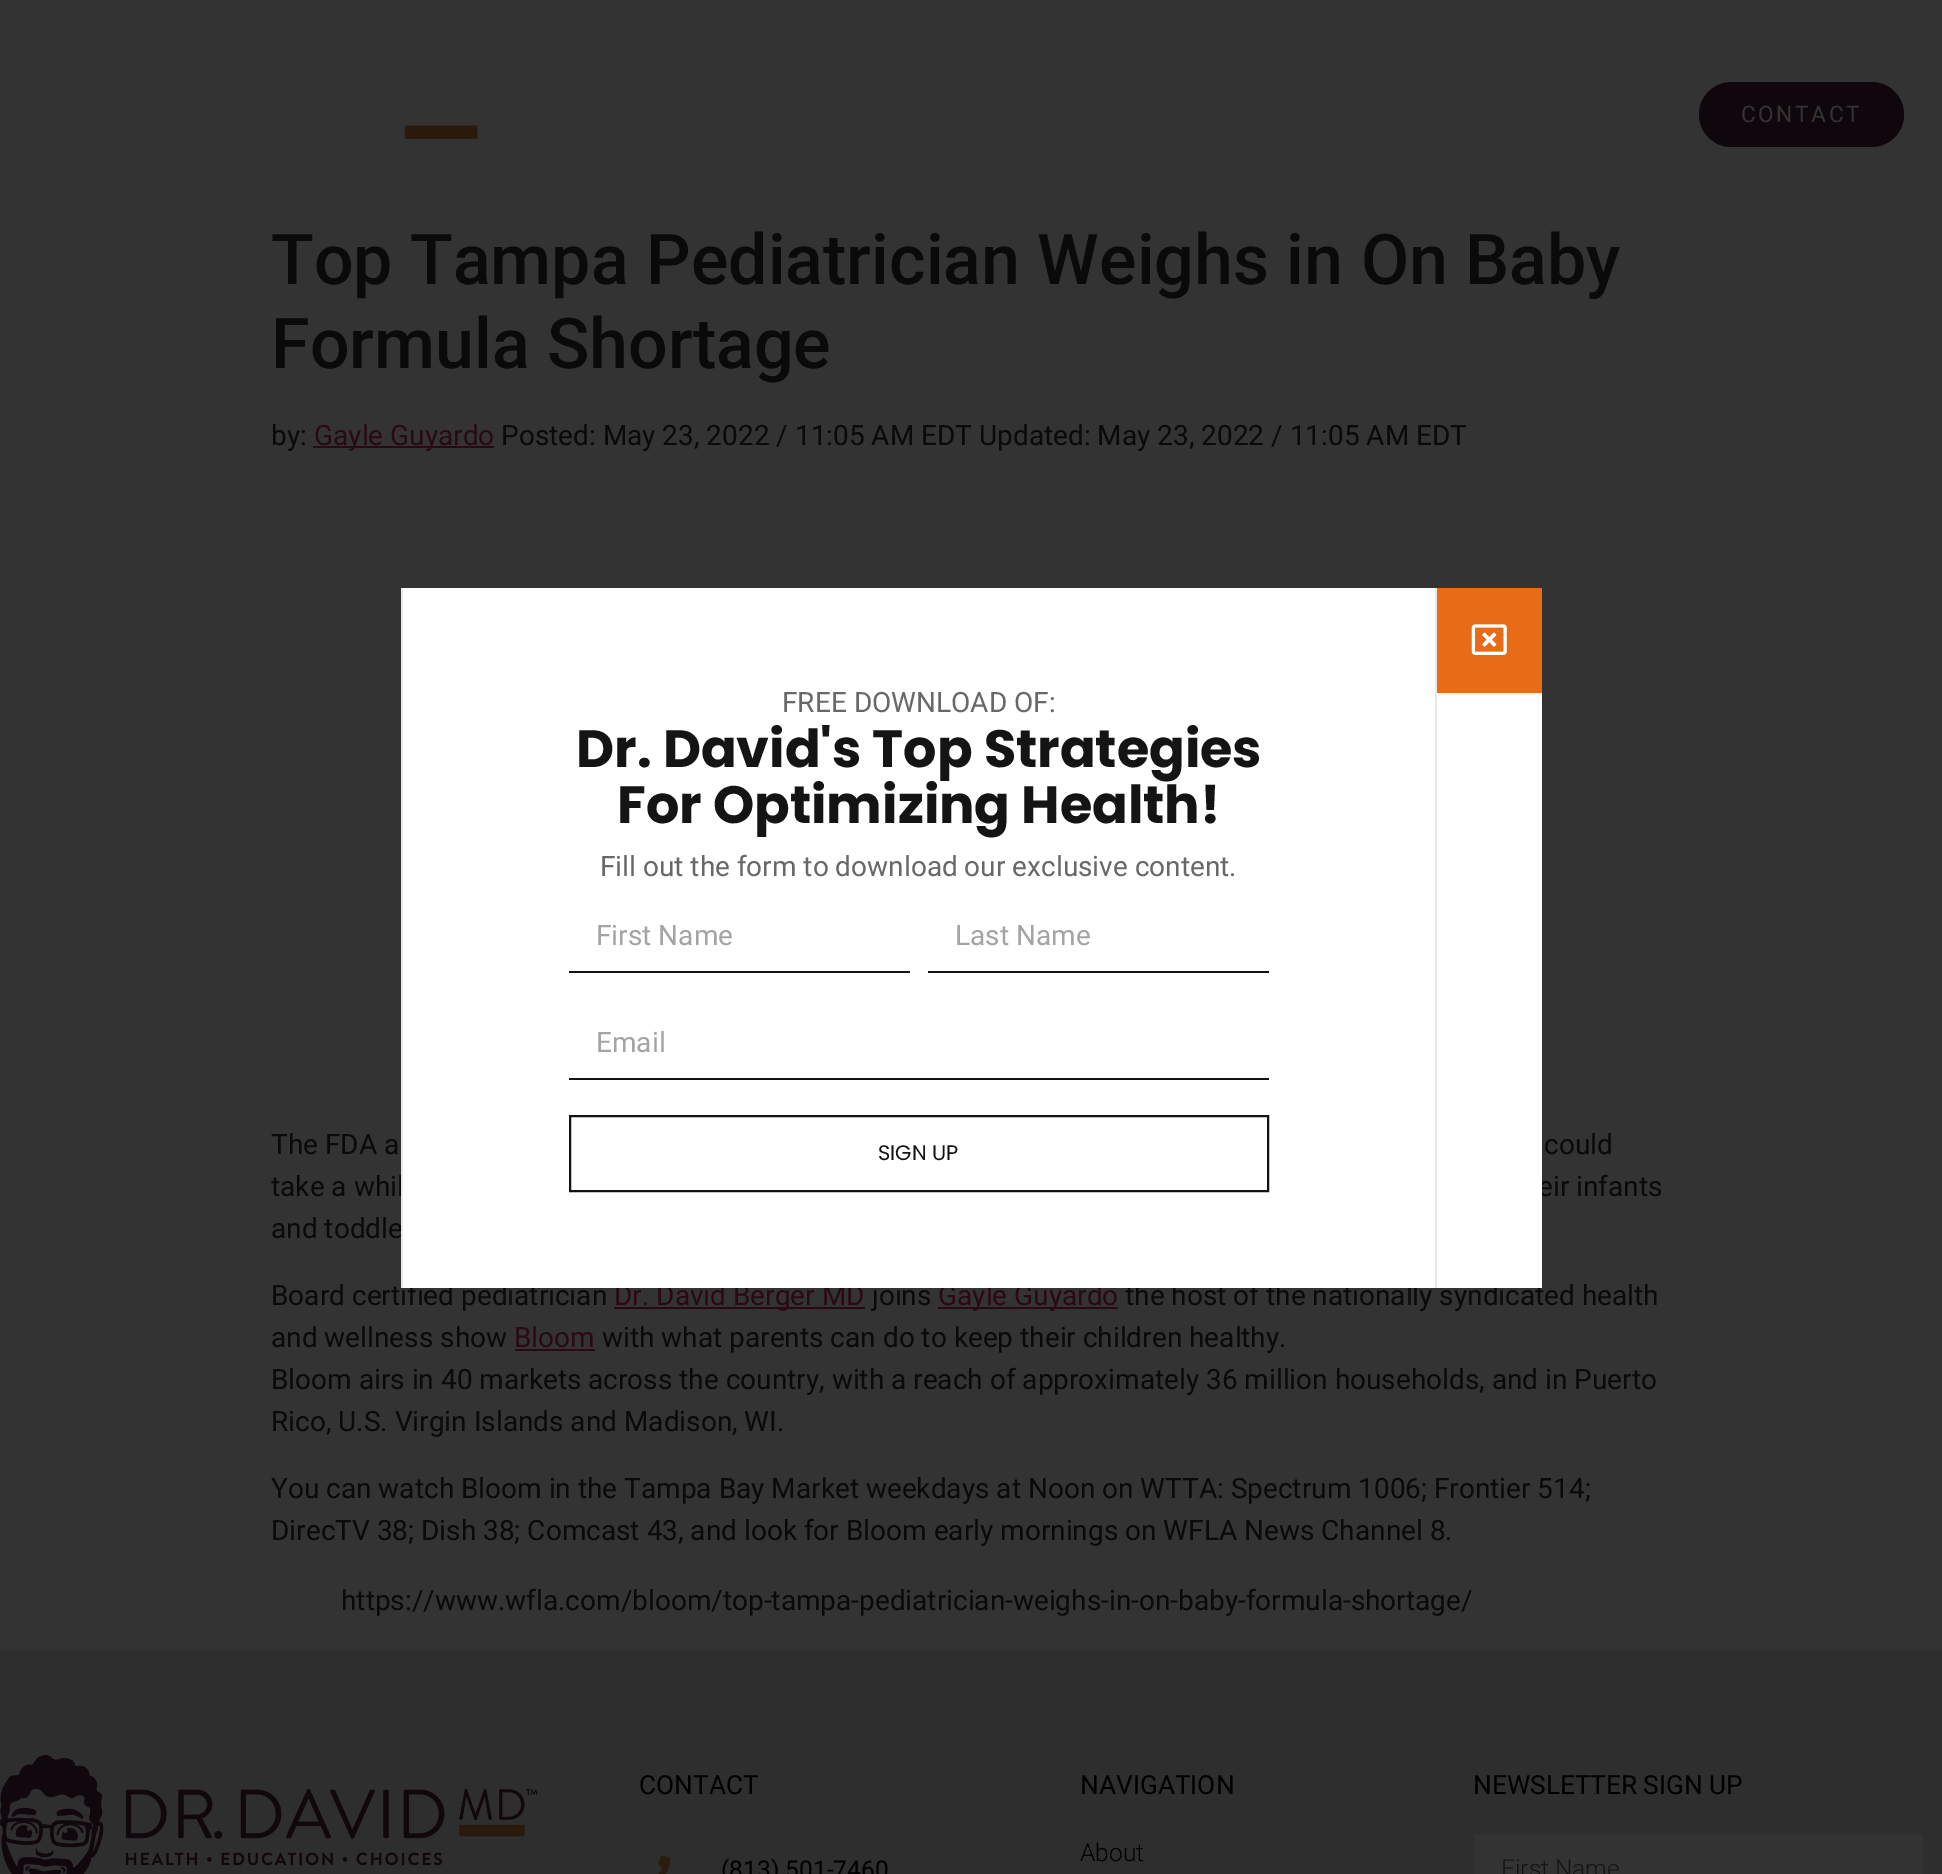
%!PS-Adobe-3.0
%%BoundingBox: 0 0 1942 1874
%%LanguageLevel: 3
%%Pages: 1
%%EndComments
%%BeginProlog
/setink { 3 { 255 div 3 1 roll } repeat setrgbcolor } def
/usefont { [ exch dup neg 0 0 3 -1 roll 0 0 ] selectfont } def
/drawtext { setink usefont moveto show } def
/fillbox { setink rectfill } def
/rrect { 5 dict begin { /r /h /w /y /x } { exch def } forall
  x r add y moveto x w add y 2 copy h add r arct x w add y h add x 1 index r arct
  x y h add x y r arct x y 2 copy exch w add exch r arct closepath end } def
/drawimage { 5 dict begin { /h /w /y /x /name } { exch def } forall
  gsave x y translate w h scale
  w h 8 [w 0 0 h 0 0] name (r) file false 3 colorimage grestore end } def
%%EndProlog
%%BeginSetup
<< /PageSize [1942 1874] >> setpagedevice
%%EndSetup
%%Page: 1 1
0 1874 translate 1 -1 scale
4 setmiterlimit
0 0 1942 1874 51 51 51 fillbox
16 7 13 setink
1699 82 205 65 32.5 rrect fill
/Roboto-Regular 22.75 usefont
51 51 51 setink
1741 122 moveto 2.5 0 (CONTACT) ashow
(assets/img1.rgb) 404 125 74 14 drawimage
(Top Tampa Pediatrician Weighs in On Baby) 271 284 /Roboto-Medium 70 10 10 10 drawtext
(Formula Shortage) 271 368 /Roboto-Medium 70 10 10 10 drawtext
(by:) 271 445 /Roboto-Regular 28 10 10 10 drawtext
313 446 181 2 41 10 20 fillbox
(Gayle Guyardo) 314 445 /Roboto-Regular 28 41 10 20 drawtext
(Posted: May 23, 2022 / 11:05 AM EDT Updated: May 23, 2022 / 11:05 AM EDT) 501 445 /Roboto-Regular 28 10 10 10 drawtext
(The FDA a) 271 1154 /Roboto-Regular 28 10 10 10 drawtext
(could) 1544 1154 /Roboto-Regular 28 10 10 10 drawtext
(take a whil) 271 1196 /Roboto-Regular 28 10 10 10 drawtext
(eir infants) 1538 1196 /Roboto-Regular 28 10 10 10 drawtext
(and toddle) 271 1238 /Roboto-Regular 28 10 10 10 drawtext
(Board certified pediatrician) 271 1305 /Roboto-Regular 28 10 10 10 drawtext
614 1307 251 2 41 10 20 fillbox
(Dr. David Berger MD) 614 1305 /Roboto-Regular 28 41 10 20 drawtext
(joins) 872 1305 /Roboto-Regular 28 10 10 10 drawtext
938 1307 180 2 41 10 20 fillbox
(Gayle Guyardo) 938 1305 /Roboto-Regular 28 41 10 20 drawtext
(the host of the nationally syndicated health) 1125 1305 /Roboto-Regular 28 10 10 10 drawtext
(and wellness show) 271 1347 /Roboto-Regular 28 10 10 10 drawtext
(Bloom) 514 1347 /Roboto-Regular 28 41 10 20 drawtext
515 1349 80 2 41 10 20 fillbox
(with what parents can do to keep their children healthy.) 602 1347 /Roboto-Regular 28 10 10 10 drawtext
(Bloom airs in 40 markets across the country, with a reach of approximately 36 million households, and in Puerto) 271 1389 /Roboto-Regular 28 10 10 10 drawtext
(Rico, U.S. Virgin Islands and Madison, WI.) 271 1431 /Roboto-Regular 28 10 10 10 drawtext
(You can watch Bloom in the Tampa Bay Market weekdays at Noon on WTTA: Spectrum 1006; Frontier 514;) 271 1498 /Roboto-Regular 28 10 10 10 drawtext
(DirecTV 38; Dish 38; Comcast 43, and look for Bloom early mornings on WFLA News Channel 8.) 271 1540 /Roboto-Regular 28 10 10 10 drawtext
(https://www.wfla.com/bloom/top-tampa-pediatrician-weighs-in-on-baby-formula-shortage/) 341 1610 /Roboto-Regular 28 10 10 10 drawtext
403 588 1139 700 255 255 255 fillbox
1437 588 105 105 232 107 24 fillbox
(assets/img2.rgb) 1471 624 36 31 drawimage
1435 588 2 700 233 233 233 fillbox
401 588 2 700 233 233 233 fillbox
(FREE DOWNLOAD OF:) 782 712 /Roboto-Regular 28 104 104 104 drawtext
(Dr. David's Top Strategies) 576 767 /Poppins-Bold 52.5 20 20 20 drawtext
(For Optimizing Health!) 617 823 /Poppins-Bold 52.5 20 20 20 drawtext
(Fill out the form to download our exclusive content.) 600 876 /Roboto-Regular 28 104 104 104 drawtext
569 971 341 2 20 19 19 fillbox
(First Name) 596 945 /Roboto-Regular 28 164 164 164 drawtext
928 971 341 2 20 19 19 fillbox
(Last Name) 955 945 /Roboto-Regular 28 164 164 164 drawtext
569 1078 700 2 20 19 19 fillbox
(Email) 596 1052 /Roboto-Regular 28 164 164 164 drawtext
20 19 19 setink
2 setlinewidth
570 1116 698 75 rectstroke
(SIGN UP) 878 1160 /Poppins-Regular 21 20 20 20 drawtext
0 1650 1942 224 46 46 46 fillbox
(assets/img3.rgb) 0 1755 538 119 drawimage
(CONTACT) 639 1794 /Roboto-Regular 26.25 1 0 0 drawtext
(assets/img4.rgb) 658 1855 13 19 drawimage
(\(813\) 501-7460) 721 1878 /Roboto-Regular 24.5 1 0 0 drawtext
(NAVIGATION) 1080 1794 /Roboto-Regular 26.25 1 0 0 drawtext
(About) 1080 1861 /Roboto-Light 24.5 1 0 0 drawtext
(NEWSLETTER SIGN UP) 1473 1794 /Roboto-Regular 26.25 1 0 0 drawtext
1474 1834 449 40 51 51 51 fillbox
(First Name) 1501 1877 /Roboto-Light 24.5 20 20 20 drawtext
showpage
%%EOF
